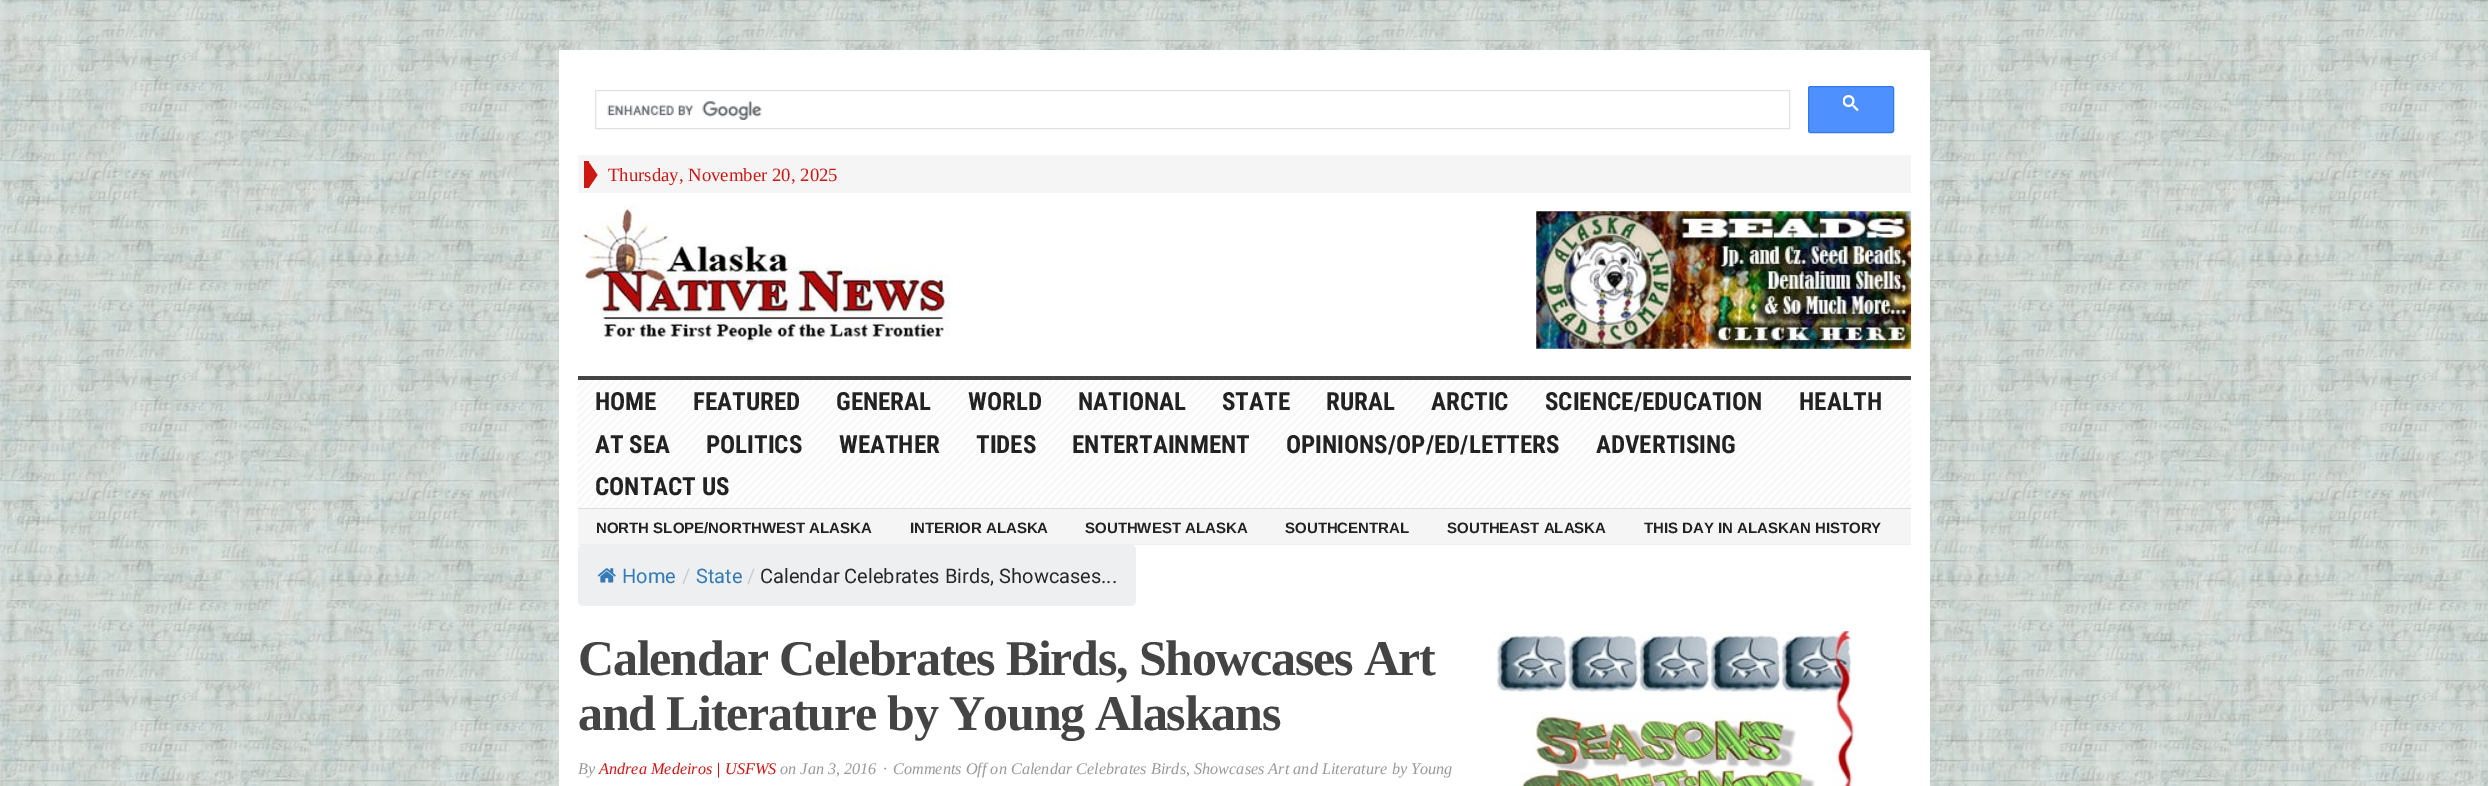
%!PS-Adobe-3.0
%%BoundingBox: 0 0 2488 786
%%LanguageLevel: 3
%%Pages: 1
%%EndComments
%%BeginProlog
/setink { 3 { 255 div 3 1 roll } repeat setrgbcolor } def
/usefont { [ exch dup neg 0 0 3 -1 roll 0 0 ] selectfont } def
/drawtext { setink usefont moveto show } def
/fillbox { setink rectfill } def
/rrect { 5 dict begin { /r /h /w /y /x } { exch def } forall
  x r add y moveto x w add y 2 copy h add r arct x w add y h add x 1 index r arct
  x y h add x y r arct x y 2 copy exch w add exch r arct closepath end } def
/drawimage { 5 dict begin { /h /w /y /x /name } { exch def } forall
  gsave x y translate w h scale
  w h 8 [w 0 0 h 0 0] name (r) file false 3 colorimage grestore end } def
%%EndProlog
%%BeginSetup
<< /PageSize [2488 786] >> setpagedevice
%%EndSetup
%%Page: 1 1
0 786 translate 1 -1 scale
4 setmiterlimit
0 0 2488 786 255 255 255 fillbox
(assets/img1.rgb) 0 0 2488 786 drawimage
559 50 1371 736 255 255 255 fillbox
223 225 229 setink
595.5 90.5 1194 38 rectstroke
(assets/img2.rgb) 607 101 155 19 drawimage
77 144 254 setink
1808.5 86.5 85 46 2 rrect gsave fill grestore
48 121 237 setink
stroke
(assets/img3.rgb) 1843 95 16 16 drawimage
578 155 1333 38 245 245 245 fillbox
584 161 5 27 205 23 19 fillbox
589 187.5 moveto 589 162.5 lineto 597.5 175 lineto closepath fill
(Thursday, November 20, 2025) 608 181 /LiberationSerif-Regular 18.75 205 23 19 drawtext
578 376 1333 4 68 68 68 fillbox
(assets/img4.rgb) 578 205 372 140 drawimage
(assets/img5.rgb) 1536 211 376 138 drawimage
(assets/img6.rgb) 577 380 1334 129 drawimage
578 508 1333 1 221 221 221 fillbox
(HOME) 595 410 /RobotoCondensed-Bold 25 34 34 34 drawtext
(FEATURED) 693 410 /RobotoCondensed-Bold 25 34 34 34 drawtext
(GENERAL) 836 410 /RobotoCondensed-Bold 25 34 34 34 drawtext
(WORLD) 968 410 /RobotoCondensed-Bold 25 34 34 34 drawtext
(NATIONAL) 1078 410 /RobotoCondensed-Bold 25 34 34 34 drawtext
(STATE) 1222 410 /RobotoCondensed-Bold 25 34 34 34 drawtext
(RURAL) 1326 410 /RobotoCondensed-Bold 25 34 34 34 drawtext
(ARCTIC) 1431 410 /RobotoCondensed-Bold 25 34 34 34 drawtext
(SCIENCE/EDUCATION) 1545 410 /RobotoCondensed-Bold 25 34 34 34 drawtext
(HEALTH) 1799 410 /RobotoCondensed-Bold 25 34 34 34 drawtext
(AT SEA) 595 453 /RobotoCondensed-Bold 25 34 34 34 drawtext
(POLITICS) 706 453 /RobotoCondensed-Bold 25 34 34 34 drawtext
(WEATHER) 839 453 /RobotoCondensed-Bold 25 34 34 34 drawtext
(TIDES) 976 453 /RobotoCondensed-Bold 25 34 34 34 drawtext
(ENTERTAINMENT) 1072 453 /RobotoCondensed-Bold 25 34 34 34 drawtext
(OPINIONS/OP/ED/LETTERS) 1286 453 /RobotoCondensed-Bold 25 34 34 34 drawtext
(ADVERTISING) 1596 453 /RobotoCondensed-Bold 25 34 34 34 drawtext
(CONTACT US) 595 495 /RobotoCondensed-Bold 25 34 34 34 drawtext
578 509 1333 35 245 245 245 fillbox
578 544 1333 1 239 239 239 fillbox
(NORTH SLOPE/NORTHWEST ALASKA) 596 533 /LiberationSans-Bold 15 34 34 34 drawtext
(INTERIOR ALASKA) 910 533 /LiberationSans-Bold 15 34 34 34 drawtext
(SOUTHWEST ALASKA) 1085 533 /LiberationSans-Bold 15 34 34 34 drawtext
(SOUTHCENTRAL) 1285 533 /LiberationSans-Bold 15 34 34 34 drawtext
(SOUTHEAST ALASKA) 1447 533 /LiberationSans-Bold 15 34 34 34 drawtext
(THIS DAY IN ALASKAN HISTORY) 1644 533 /LiberationSans-Bold 15 34 34 34 drawtext
237 239 240 setink
578 545 558 61 5 rrect fill
(assets/img7.rgb) 597 568 19 15 drawimage
(Home) 622 583 /Roboto-Regular 20 51 122 183 drawtext
(/) 682 583 /Roboto-Regular 20 204 204 204 drawtext
(State) 696 583 /Roboto-Regular 20 51 122 183 drawtext
(/) 747 583 /Roboto-Regular 20 204 204 204 drawtext
(Calendar Celebrates Birds, Showcases...) 760 583 /Roboto-Regular 20 39 39 42 drawtext
/LiberationSerif-Bold 50 usefont
68 68 68 setink
578 675 moveto -1.25 0 (Calendar Celebrates Birds, Showcases Art) ashow
578 730 moveto -1.25 0 (and Literature by Young Alaskans) ashow
(By) 578 774 /LiberationSerif-Italic 16.25 153 153 153 drawtext
(Andrea Medeiros | USFWS) 599 774 /LiberationSerif-Italic 16.25 205 23 19 drawtext
(on Jan 3, 2016) 780 774 /LiberationSerif-Italic 16.25 153 153 153 drawtext
(·) 883 774 /LiberationSerif-Italic 16.25 153 153 153 drawtext
(Comments Off on Calendar Celebrates Birds, Showcases Art and Literature by Young) 893 774 /LiberationSerif-Italic 16.25 153 153 153 drawtext
(assets/img8.rgb) 1491 631 368 155 drawimage
showpage
%%EOF
